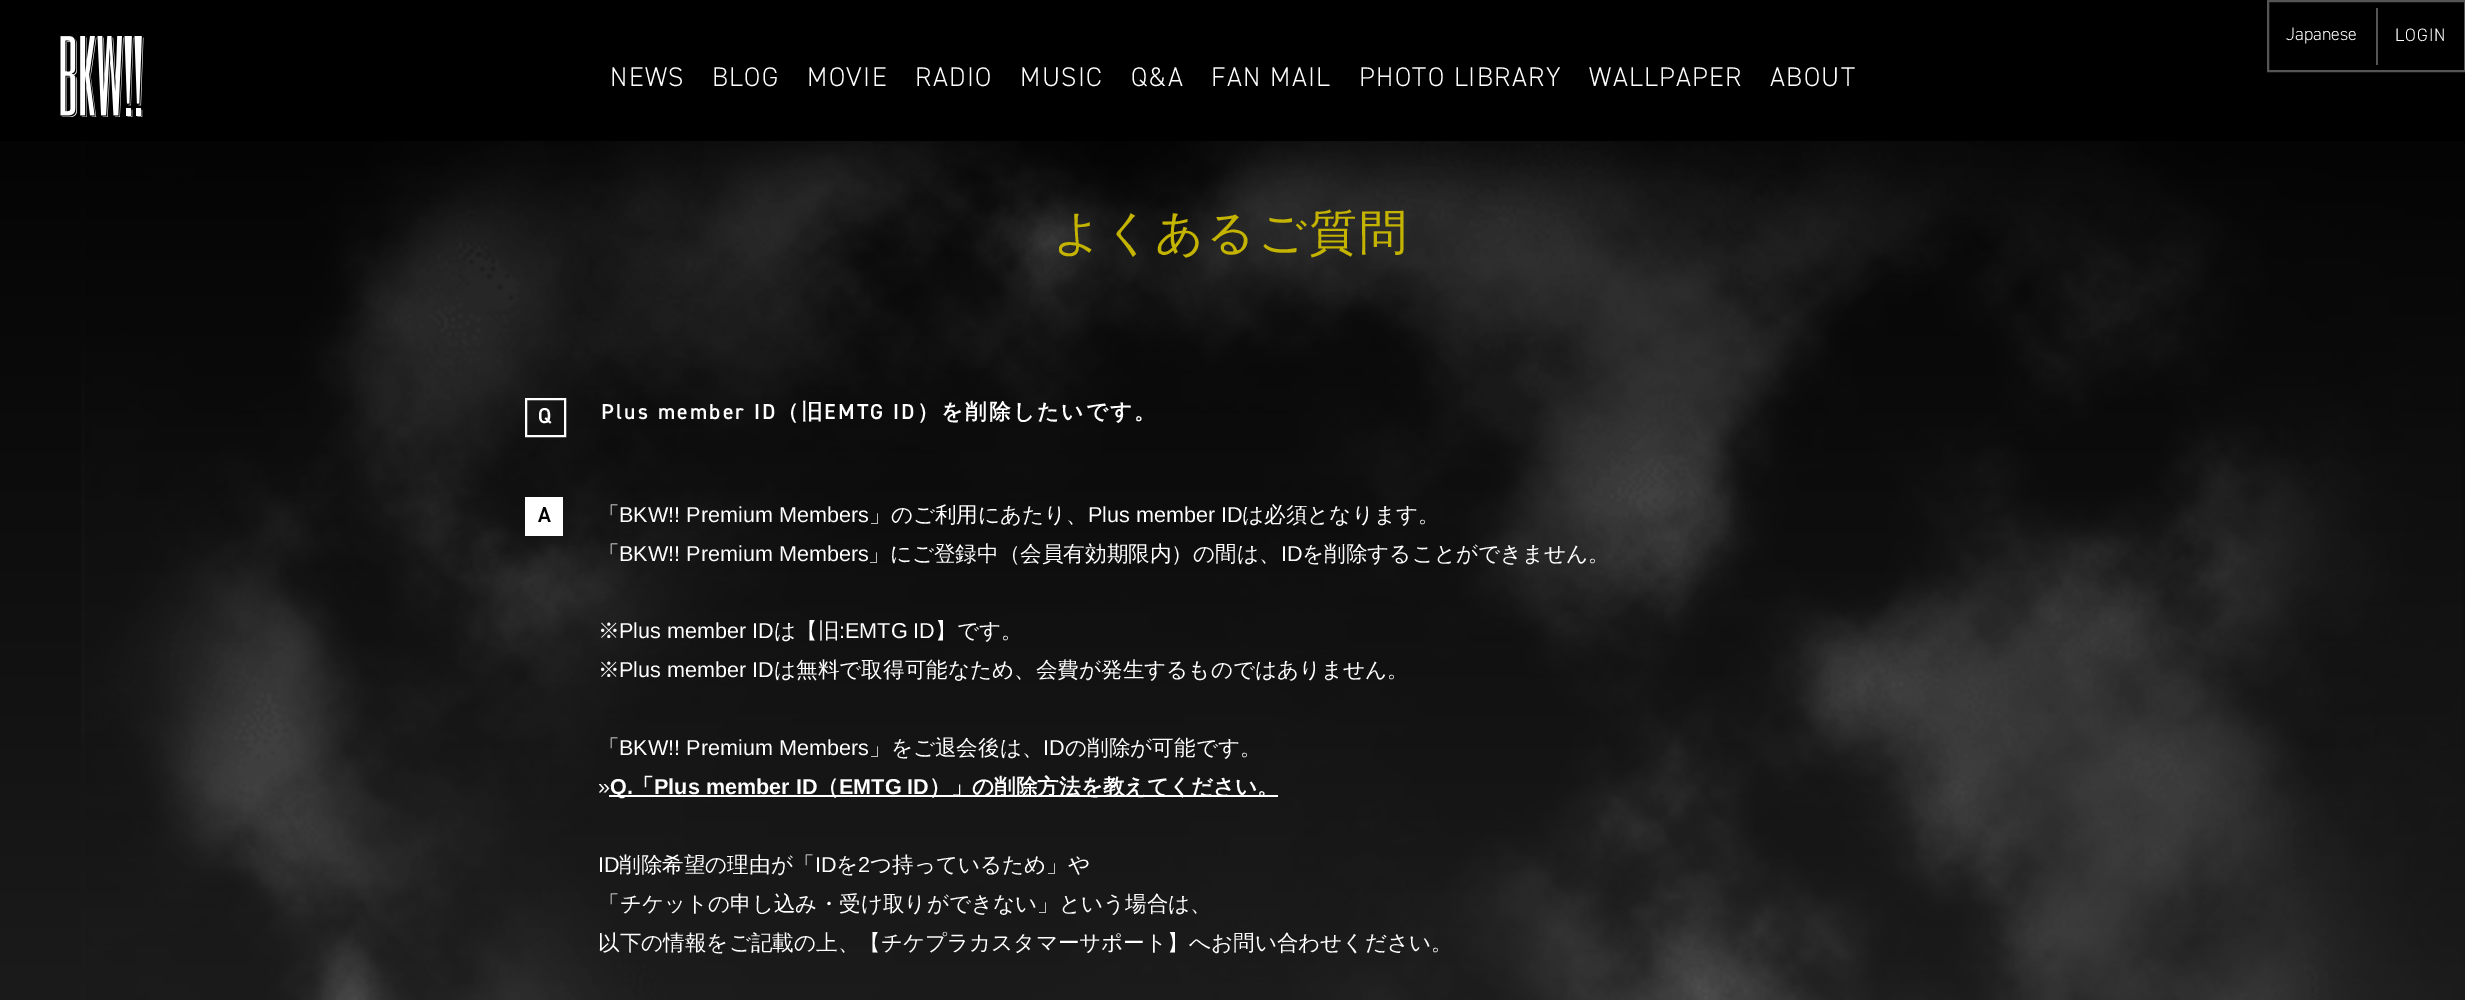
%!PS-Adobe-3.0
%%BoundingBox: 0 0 2465 1000
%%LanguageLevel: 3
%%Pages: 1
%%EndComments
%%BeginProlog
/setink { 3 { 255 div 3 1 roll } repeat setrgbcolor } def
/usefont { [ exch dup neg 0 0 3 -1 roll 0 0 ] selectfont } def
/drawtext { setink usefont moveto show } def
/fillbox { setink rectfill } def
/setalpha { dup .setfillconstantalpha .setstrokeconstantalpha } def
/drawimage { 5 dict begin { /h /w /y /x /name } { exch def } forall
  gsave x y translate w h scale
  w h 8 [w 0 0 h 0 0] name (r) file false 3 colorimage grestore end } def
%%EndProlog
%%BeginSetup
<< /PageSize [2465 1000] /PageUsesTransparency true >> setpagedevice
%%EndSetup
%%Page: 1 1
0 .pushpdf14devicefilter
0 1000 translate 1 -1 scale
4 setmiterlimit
0 0 2465 1000 255 255 255 fillbox
gsave 0 141 moveto 2465 141 lineto 2465 1000 lineto 0 1000 lineto closepath clip newpath
<< /ShadingType 2 /ColorSpace /DeviceRGB /Coords [1233 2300 1233 0] /Extend [true true] /Function << /FunctionType 2 /Domain [0 1] /C0 [0.243 0.243 0.243] /C1 [0 0 0] /N 1 >> >> shfill grestore
0 0 2465 141 0 0 0 fillbox
85 85 85 setink
2 setlinewidth
2268 1 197 70 rectstroke
2376 8 2 57 85 85 85 fillbox
(Japanese) 2286 40 /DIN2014-Light 18 255 255 255 drawtext
2395 41 moveto 1 0 (LOGIN) ashow
(assets/img1.rgb) 60 36 84 81 drawimage
/DIN2014-Light 27 usefont
610 86 moveto 1.4 0 (NEWS) ashow
712 86 moveto 1.4 0 (BLOG) ashow
807 86 moveto 1.4 0 (MOVIE) ashow
915 86 moveto 1.4 0 (RADIO) ashow
1020 86 moveto 1.4 0 (MUSIC) ashow
1131 86 moveto 1.4 0 (Q&A) ashow
1211 86 moveto 1.4 0 (FAN MAIL) ashow
1359 86 moveto 1.4 0 (PHOTO LIBRARY) ashow
1589 86 moveto 1.4 0 (WALLPAPER) ashow
1770 86 moveto 1.4 0 (ABOUT) ashow
(assets/img2.rgb) 81 141 2381 859 drawimage
0.53 setalpha
gsave 85 141 moveto 2462 141 lineto 2462 1000 lineto 85 1000 lineto closepath clip newpath
<< /ShadingType 2 /ColorSpace /DeviceRGB /Coords [1233 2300 1233 0] /Extend [true true] /Function << /FunctionType 2 /Domain [0 1] /C0 [0.243 0.243 0.243] /C1 [0 0 0] /N 1 >> >> shfill grestore
/WenQuanYiZenHei-Medium 48 usefont
1 setalpha
196 180 0 setink
1053 249 moveto 2 0 (よくあるご質問) ashow
255 255 255 setink
526 399 39 37 rectstroke
/DIN2014-SemiBold 21.6 usefont
538 423 moveto 2.2 0 (Q) ashow
601 419 moveto 2.2 0 (Plus member ID) ashow
/WenQuanYiZenHei-Bold 21.6 usefont
777 419 moveto 2.2 0 (（旧) ashow
/DIN2014-SemiBold 21.6 usefont
824 419 moveto 2.2 0 (EMTG ID) ashow
/WenQuanYiZenHei-Bold 21.6 usefont
917 419 moveto 2.2 0 (）を削除したいです。) ashow
525 497 38 39 255 255 255 fillbox
(A) 538 522 /DIN2014-SemiBold 21.6 0 0 0 drawtext
(「) 598 522 /WenQuanYiZenHei-Medium 21.6 255 255 255 drawtext
(BKW!! Premium Members) 619 522 /LiberationSans-Regular 21.6 255 255 255 drawtext
(」のご利用にあたり、) 869 522 /WenQuanYiZenHei-Medium 21.6 255 255 255 drawtext
(Plus member ID) 1088 522 /LiberationSans-Regular 21.6 255 255 255 drawtext
(は必須となります。) 1242 522 /WenQuanYiZenHei-Medium 21.6 255 255 255 drawtext
(「) 598 561 /WenQuanYiZenHei-Medium 21.6 255 255 255 drawtext
(BKW!! Premium Members) 619 561 /LiberationSans-Regular 21.6 255 255 255 drawtext
(」にご登録中（会員有効期限内）の間は、) 868 561 /WenQuanYiZenHei-Medium 21.6 255 255 255 drawtext
(ID) 1281 561 /LiberationSans-Regular 21.6 255 255 255 drawtext
(を削除することができません。) 1302 561 /WenQuanYiZenHei-Medium 21.6 255 255 255 drawtext
(※) 598 638 /WenQuanYiZenHei-Medium 21.6 255 255 255 drawtext
(Plus member ID) 619 638 /LiberationSans-Regular 21.6 255 255 255 drawtext
(は【旧) 774 638 /WenQuanYiZenHei-Medium 21.6 255 255 255 drawtext
(:EMTG ID) 839 638 /LiberationSans-Regular 21.6 255 255 255 drawtext
(】です。) 935 638 /WenQuanYiZenHei-Medium 21.6 255 255 255 drawtext
(※) 598 677 /WenQuanYiZenHei-Medium 21.6 255 255 255 drawtext
(Plus member ID) 619 677 /LiberationSans-Regular 21.6 255 255 255 drawtext
(は無料で取得可能なため、会費が発生するものではありません。) 774 677 /WenQuanYiZenHei-Medium 21.6 255 255 255 drawtext
(「) 598 755 /WenQuanYiZenHei-Medium 21.6 255 255 255 drawtext
(BKW!! Premium Members) 619 755 /LiberationSans-Regular 21.6 255 255 255 drawtext
(」をご退会後は、) 869 755 /WenQuanYiZenHei-Medium 21.6 255 255 255 drawtext
(ID) 1043 755 /LiberationSans-Regular 21.6 255 255 255 drawtext
(の削除が可能です。) 1065 755 /WenQuanYiZenHei-Medium 21.6 255 255 255 drawtext
(») 598 794 /LiberationSans-Regular 21.6 255 255 255 drawtext
609 795 669 2 255 255 255 fillbox
(Q.) 610 794 /LiberationSans-Bold 21.6 255 255 255 drawtext
(「) 632 794 /WenQuanYiZenHei-Bold 21.6 255 255 255 drawtext
(Plus member ID) 654 794 /LiberationSans-Bold 21.6 255 255 255 drawtext
(（) 817 794 /WenQuanYiZenHei-Bold 21.6 255 255 255 drawtext
(EMTG ID) 839 794 /LiberationSans-Bold 21.6 255 255 255 drawtext
(）」の削除方法を教えてください。) 929 794 /WenQuanYiZenHei-Bold 21.6 255 255 255 drawtext
(ID) 598 872 /LiberationSans-Regular 21.6 255 255 255 drawtext
(削除希望の理由が「) 619 872 /WenQuanYiZenHei-Medium 21.6 255 255 255 drawtext
(ID) 815 872 /LiberationSans-Regular 21.6 255 255 255 drawtext
(を) 836 872 /WenQuanYiZenHei-Medium 21.6 255 255 255 drawtext
(2) 858 872 /LiberationSans-Regular 21.6 255 255 255 drawtext
(つ持っているため」や) 870 872 /WenQuanYiZenHei-Medium 21.6 255 255 255 drawtext
(「チケットの申し込み・受け取りができない」という場合は、) 598 911 /WenQuanYiZenHei-Medium 21.6 255 255 255 drawtext
(以下の情報をご記載の上、【チケプラカスタマーサポート】へお問い合わせください。) 598 950 /WenQuanYiZenHei-Medium 21.6 255 255 255 drawtext
.poppdf14devicefilter showpage
%%EOF
